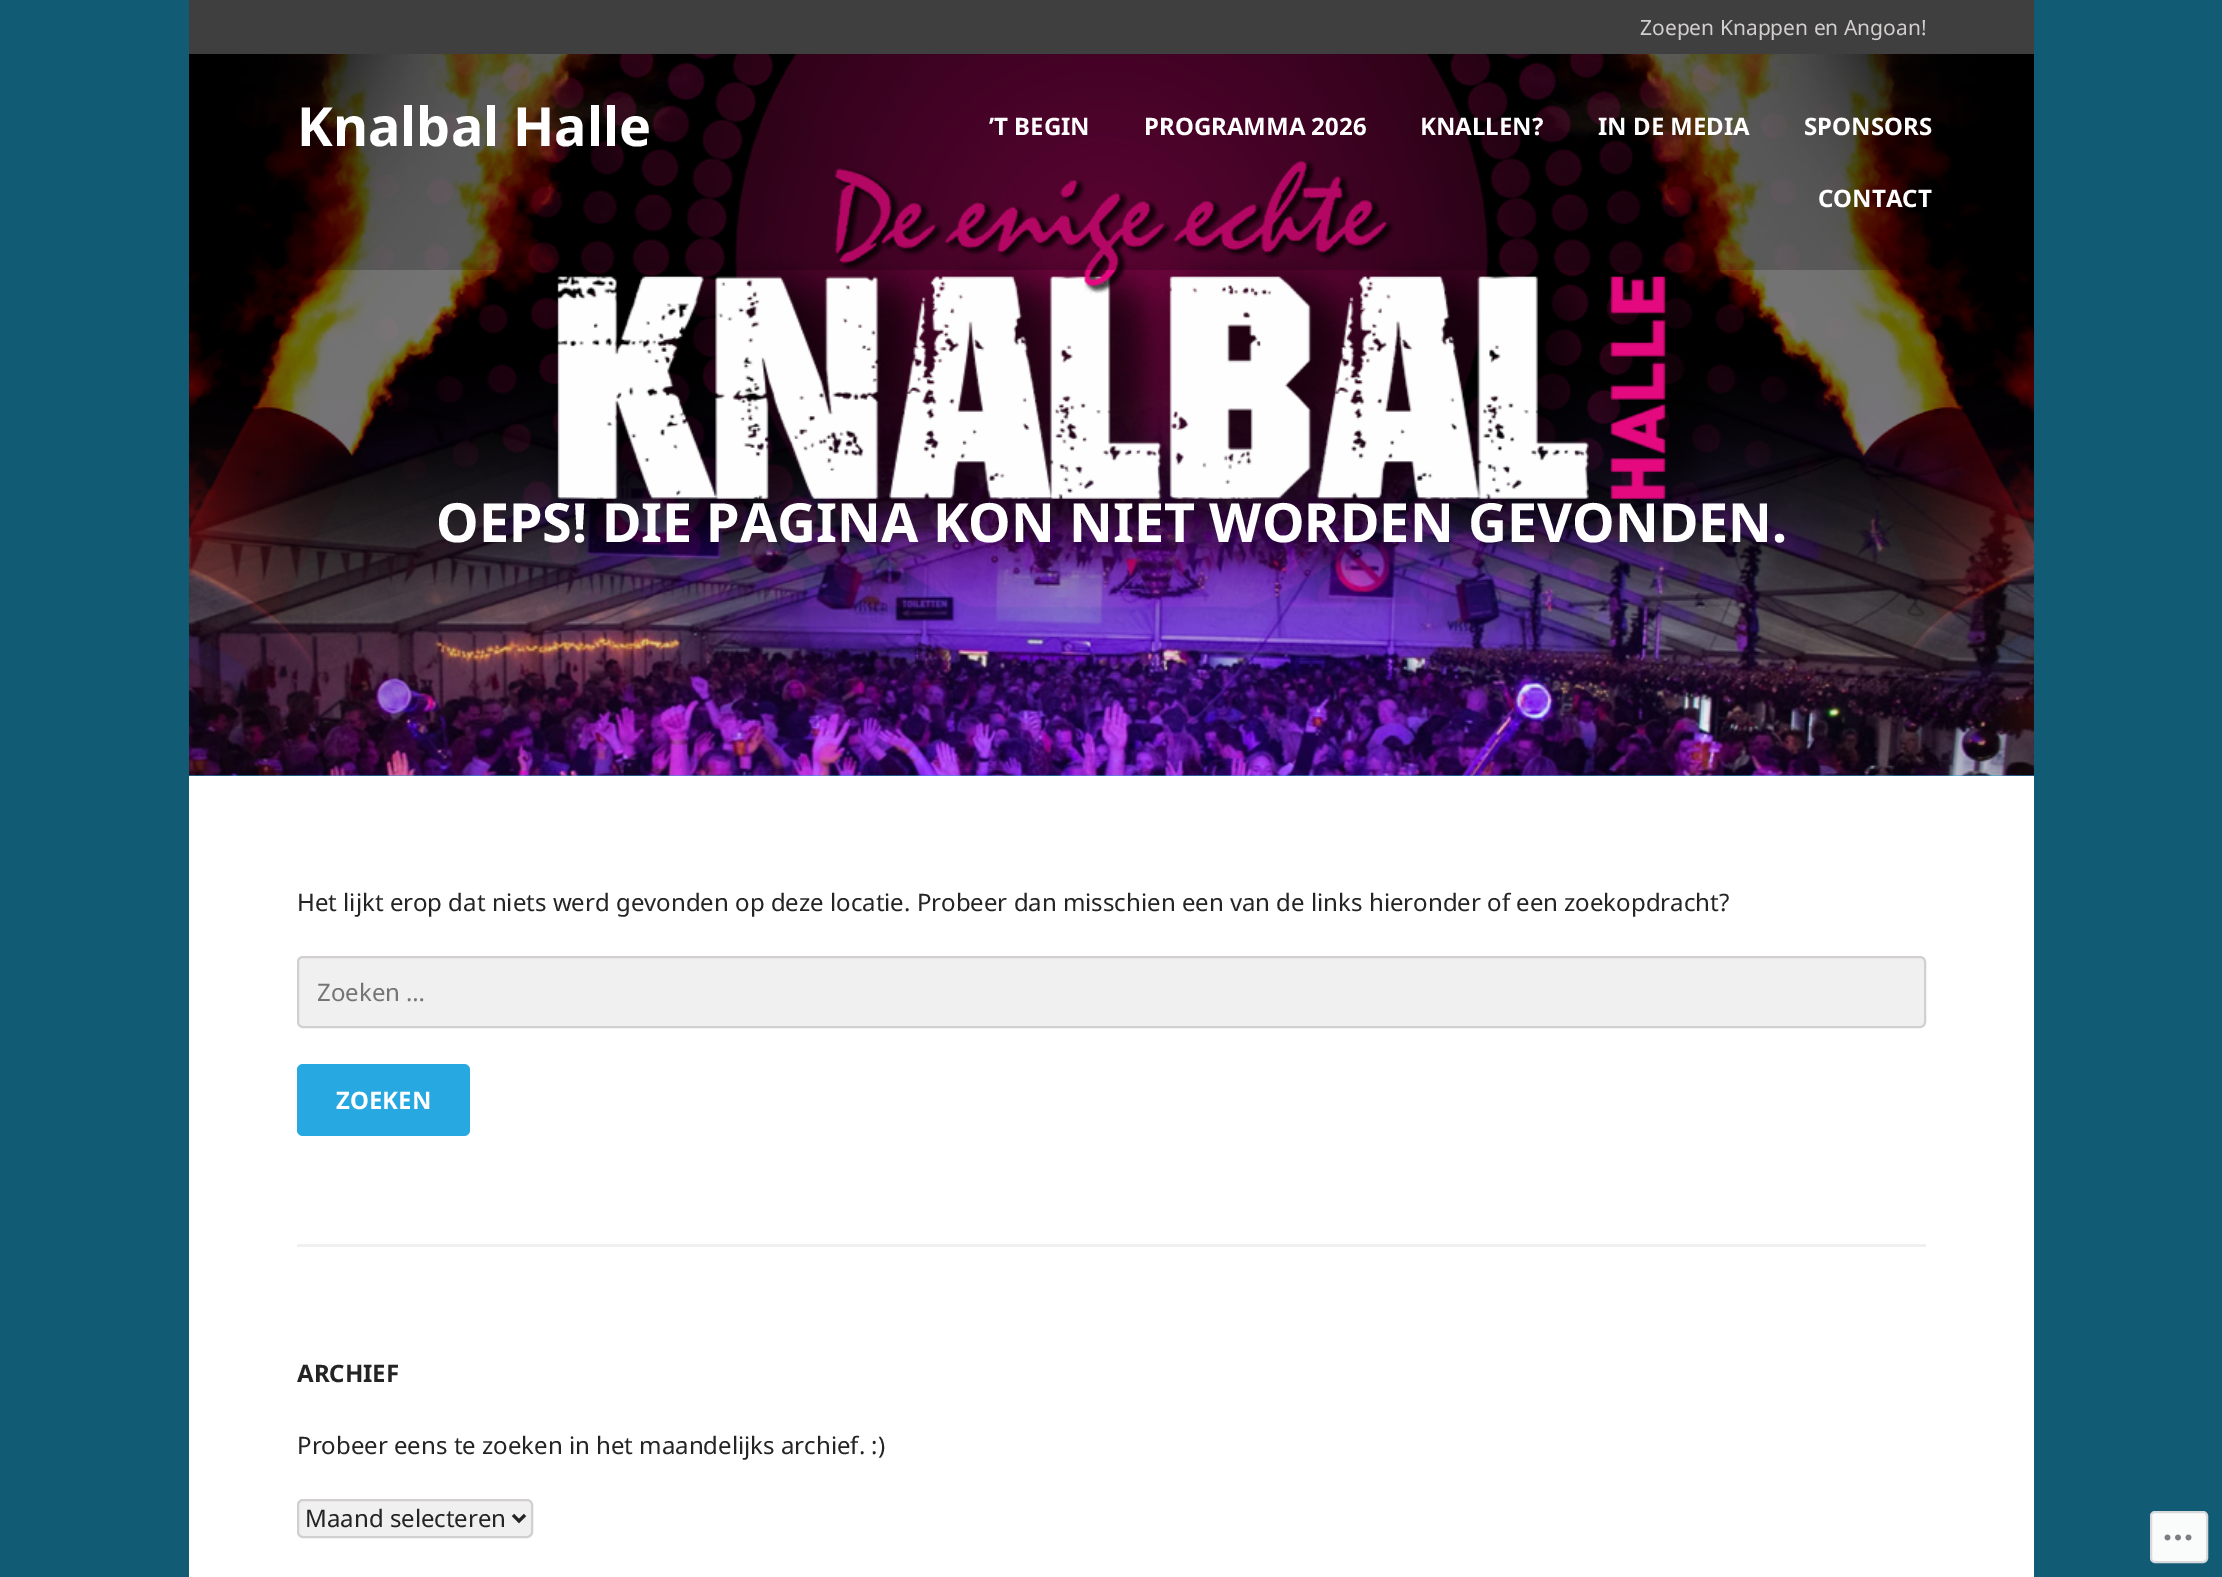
%!PS-Adobe-3.0
%%BoundingBox: 0 0 2222 1577
%%LanguageLevel: 3
%%Pages: 1
%%EndComments
%%BeginProlog
/setink { 3 { 255 div 3 1 roll } repeat setrgbcolor } def
/usefont { [ exch dup neg 0 0 3 -1 roll 0 0 ] selectfont } def
/drawtext { setink usefont moveto show } def
/fillbox { setink rectfill } def
/setalpha { dup .setfillconstantalpha .setstrokeconstantalpha } def
/rrect { 5 dict begin { /r /h /w /y /x } { exch def } forall
  x r add y moveto x w add y 2 copy h add r arct x w add y h add x 1 index r arct
  x y h add x y r arct x y 2 copy exch w add exch r arct closepath end } def
/drawimage { 5 dict begin { /h /w /y /x /name } { exch def } forall
  gsave x y translate w h scale
  w h 8 [w 0 0 h 0 0] name (r) file false 3 colorimage grestore end } def
%%EndProlog
%%BeginSetup
<< /PageSize [2222 1577] /PageUsesTransparency true >> setpagedevice
%%EndSetup
%%Page: 1 1
0 .pushpdf14devicefilter
0 1577 translate 1 -1 scale
4 setmiterlimit
0 0 2222 1577 17 91 117 fillbox
189 776 1845 801 255 255 255 fillbox
189 775 1845 1 39 168 224 fillbox
(assets/img1.rgb) 189 54 1845 722 drawimage
0.22 setalpha
245 54 1725 216 0 0 0 fillbox
1 setalpha
189 0 1845 54 64 63 63 fillbox
(Zoepen Knappen en Angoan!) 1640 35 /NotoSans-Regular 21 210 207 207 drawtext
(Knalbal Halle) 297 146 /NotoSans-Bold 54 255 255 255 drawtext
(’T BEGIN) 989 135 /NotoSans-Bold 24 255 255 255 drawtext
(PROGRAMMA 2026) 1144 135 /NotoSans-Bold 24 255 255 255 drawtext
(KNALLEN?) 1420 135 /NotoSans-Bold 24 255 255 255 drawtext
(IN DE MEDIA) 1598 135 /NotoSans-Bold 24 255 255 255 drawtext
(SPONSORS) 1804 135 /NotoSans-Bold 24 255 255 255 drawtext
(CONTACT) 1818 207 /NotoSans-Bold 24 255 255 255 drawtext
(OEPS! DIE PAGINA KON NIET WORDEN GEVONDEN.) 436 542 /NotoSans-Bold 54 255 255 255 drawtext
(Het lijkt erop dat niets werd gevonden op deze locatie. Probeer dan misschien een van de links hieronder of een zoekopdracht?) 297 911 /NotoSans-Regular 24 36 36 36 drawtext
241 240 240 setink
298 957 1627 70 5 rrect gsave fill grestore
210 207 207 setink
2 setlinewidth
stroke
(Zoeken …) 317 1001 /NotoSans-Regular 24 117 117 117 drawtext
39 168 224 setink
297 1064 173 72 6 rrect fill
(ZOEKEN) 336 1109 /NotoSans-Bold 24 255 255 255 drawtext
297 1244 1629 3 241 240 240 fillbox
(ARCHIEF) 297 1382 /NotoSans-Bold 24 36 36 36 drawtext
(Probeer eens te zoeken in het maandelijks archief. :\)) 297 1454 /NotoSans-Regular 24 36 36 36 drawtext
241 240 240 setink
298 1500 234 37 5 rrect gsave fill grestore
210 207 207 setink
stroke
36 36 36 setink
3 setlinewidth
513 1515 moveto 519 1521 lineto 525 1515 lineto stroke
(Maand selecteren) 305 1527 /NotoSans-Regular 24 36 36 36 drawtext
250 252 252 setink
2151 1512 56 50 4 rrect gsave fill grestore
216 217 220 setink
2 setlinewidth
stroke
(assets/img2.rgb) 2164 1534 28 7 drawimage
.poppdf14devicefilter showpage
%%EOF
